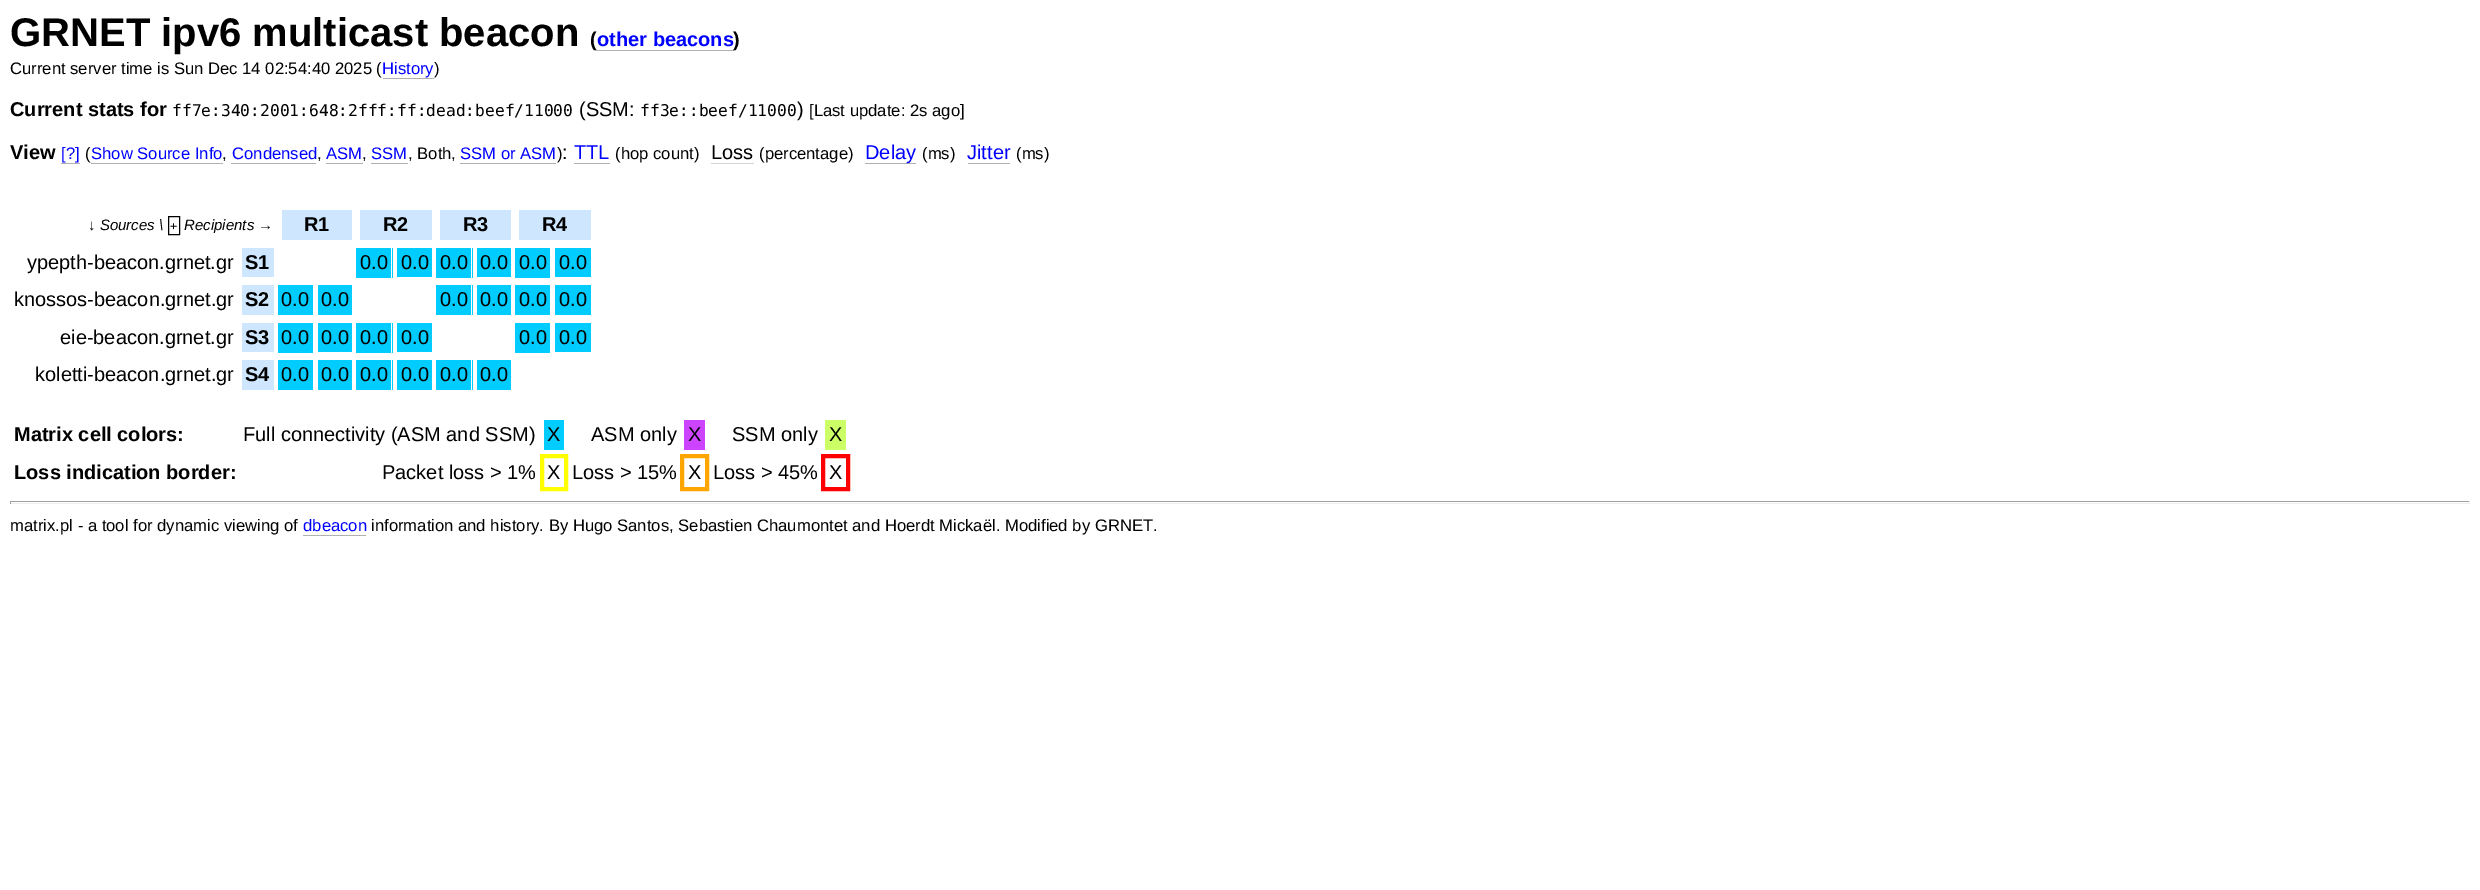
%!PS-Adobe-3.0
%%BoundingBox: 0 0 2480 890
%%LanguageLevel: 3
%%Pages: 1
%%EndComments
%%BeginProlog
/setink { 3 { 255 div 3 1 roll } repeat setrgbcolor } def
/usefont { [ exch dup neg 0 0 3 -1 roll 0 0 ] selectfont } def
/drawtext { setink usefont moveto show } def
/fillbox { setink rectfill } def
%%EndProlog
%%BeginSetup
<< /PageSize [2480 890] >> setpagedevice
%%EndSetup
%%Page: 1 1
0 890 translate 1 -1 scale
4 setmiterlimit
0 0 2480 890 255 255 255 fillbox
(GRNET ipv6 multicast beacon) 10 46 /LiberationSans-Bold 40 0 0 0 drawtext
(\() 590 46 /LiberationSans-Bold 20 0 0 0 drawtext
596 50 138 1 176 176 176 fillbox
(other beacons) 597 46 /LiberationSans-Bold 20 0 0 255 drawtext
(\)) 733 46 /LiberationSans-Bold 20 0 0 0 drawtext
(Current server time is Sun Dec 14 02:54:40 2025 \() 10 74 /LiberationSans-Regular 16.65 0 0 0 drawtext
383 78 51 1 176 176 176 fillbox
(History) 382 74 /LiberationSans-Regular 16.65 0 0 255 drawtext
(\)) 434 74 /LiberationSans-Regular 16.65 0 0 0 drawtext
(Current stats for) 10 116 /LiberationSans-Bold 20 0 0 0 drawtext
(ff7e:340:2001:648:2fff:ff:dead:beef/11000) 172 116 /DejaVuSansMono-Regular 16.25 0 0 0 drawtext
(\(SSM:) 579 116 /LiberationSans-Regular 20 0 0 0 drawtext
(ff3e::beef/11000) 640 116 /DejaVuSansMono-Regular 16.25 0 0 0 drawtext
(\)) 797 116 /LiberationSans-Regular 20 0 0 0 drawtext
([Last update: 2s ago]) 809 116 /LiberationSans-Regular 16.65 0 0 0 drawtext
(View) 10 159 /LiberationSans-Bold 20 0 0 0 drawtext
([?]) 61 159 /LiberationSans-Regular 16.65 0 0 255 drawtext
61 163 19 1 176 176 176 fillbox
(\() 85 159 /LiberationSans-Regular 16.65 0 0 0 drawtext
(Show Source Info) 91 159 /LiberationSans-Regular 16.65 0 0 255 drawtext
(Condensed) 232 159 /LiberationSans-Regular 16.65 0 0 255 drawtext
(ASM) 326 159 /LiberationSans-Regular 16.65 0 0 255 drawtext
(SSM) 371 159 /LiberationSans-Regular 16.65 0 0 255 drawtext
(, Both,) 408 159 /LiberationSans-Regular 16.65 0 0 0 drawtext
(SSM or ASM) 460 159 /LiberationSans-Regular 16.65 0 0 255 drawtext
(\)) 557 159 /LiberationSans-Regular 16.65 0 0 0 drawtext
460 163 96 1 176 176 176 fillbox
(:) 562 159 /LiberationSans-Regular 20 0 0 0 drawtext
(,) 222 159 /LiberationSans-Regular 16.65 0 0 0 drawtext
91 163 132 1 176 176 176 fillbox
(,) 317 159 /LiberationSans-Regular 16.65 0 0 0 drawtext
231 163 85 1 176 176 176 fillbox
(,) 362 159 /LiberationSans-Regular 16.65 0 0 0 drawtext
326 163 37 1 176 176 176 fillbox
371 163 37 1 176 176 176 fillbox
(TTL) 574 159 /LiberationSans-Regular 20 0 0 255 drawtext
574 163 36 1 176 176 176 fillbox
(\(hop count\)) 615 159 /LiberationSans-Regular 16.65 0 0 0 drawtext
(Loss) 711 159 /LiberationSans-Regular 20 0 0 0 drawtext
711 163 43 1 212 212 212 fillbox
(\(percentage\)) 759 159 /LiberationSans-Regular 16.65 0 0 0 drawtext
865 163 51 1 176 176 176 fillbox
(Delay) 865 159 /LiberationSans-Regular 20 0 0 255 drawtext
(\(ms\)) 922 159 /LiberationSans-Regular 16.65 0 0 0 drawtext
(Jitter) 967 159 /LiberationSans-Regular 20 0 0 255 drawtext
968 163 42 1 176 176 176 fillbox
(\(ms\)) 1016 159 /LiberationSans-Regular 16.65 0 0 0 drawtext
(↓ Sources \\) 88 230 /LiberationSans-Italic 15 0 0 0 drawtext
168.5 216.5 11 18 rectstroke
(+) 170 230 /DejaVuSansMono-Regular 12 0 0 0 drawtext
(Recipients →) 184 230 /LiberationSans-Italic 15 0 0 0 drawtext
282 210 70 30 206 231 255 fillbox
(R1) 304 231 /LiberationSans-Bold 20 0 0 0 drawtext
360 210 72 30 206 231 255 fillbox
(R2) 383 231 /LiberationSans-Bold 20 0 0 0 drawtext
440 210 71 30 206 231 255 fillbox
(R3) 463 231 /LiberationSans-Bold 20 0 0 0 drawtext
519 210 72 30 206 231 255 fillbox
(R4) 542 231 /LiberationSans-Bold 20 0 0 0 drawtext
(ypepth-beacon.grnet.gr) 27 269 /LiberationSans-Regular 20 0 0 0 drawtext
242 248 32 29 206 231 255 fillbox
(S1) 245 269 /LiberationSans-Bold 20 0 0 0 drawtext
356 248 37 30 0 204 255 fillbox
391 244 1 37 255 255 255 fillbox
(0.0) 360 269 /LiberationSans-Regular 20 0 0 0 drawtext
397 248 35 29 0 204 255 fillbox
(0.0) 401 269 /LiberationSans-Regular 20 0 0 0 drawtext
436 248 37 30 0 204 255 fillbox
471 244 1 37 255 255 255 fillbox
(0.0) 440 269 /LiberationSans-Regular 20 0 0 0 drawtext
477 248 34 29 0 204 255 fillbox
(0.0) 480 269 /LiberationSans-Regular 20 0 0 0 drawtext
515 248 35 30 0 204 255 fillbox
(0.0) 519 269 /LiberationSans-Regular 20 0 0 0 drawtext
555 248 36 29 0 204 255 fillbox
(0.0) 559 269 /LiberationSans-Regular 20 0 0 0 drawtext
(knossos-beacon.grnet.gr) 14 306 /LiberationSans-Regular 20 0 0 0 drawtext
242 285 32 30 206 231 255 fillbox
(S2) 245 306 /LiberationSans-Bold 20 0 0 0 drawtext
278 285 35 30 0 204 255 fillbox
(0.0) 281 306 /LiberationSans-Regular 20 0 0 0 drawtext
318 285 34 30 0 204 255 fillbox
(0.0) 321 306 /LiberationSans-Regular 20 0 0 0 drawtext
436 285 37 30 0 204 255 fillbox
471 281 1 38 255 255 255 fillbox
(0.0) 440 306 /LiberationSans-Regular 20 0 0 0 drawtext
477 285 34 30 0 204 255 fillbox
(0.0) 480 306 /LiberationSans-Regular 20 0 0 0 drawtext
515 285 35 30 0 204 255 fillbox
(0.0) 519 306 /LiberationSans-Regular 20 0 0 0 drawtext
555 285 36 30 0 204 255 fillbox
(0.0) 559 306 /LiberationSans-Regular 20 0 0 0 drawtext
(eie-beacon.grnet.gr) 60 344 /LiberationSans-Regular 20 0 0 0 drawtext
242 323 32 29 206 231 255 fillbox
(S3) 245 344 /LiberationSans-Bold 20 0 0 0 drawtext
278 323 35 30 0 204 255 fillbox
(0.0) 281 344 /LiberationSans-Regular 20 0 0 0 drawtext
318 323 34 29 0 204 255 fillbox
(0.0) 321 344 /LiberationSans-Regular 20 0 0 0 drawtext
356 323 37 30 0 204 255 fillbox
391 319 1 37 255 255 255 fillbox
(0.0) 360 344 /LiberationSans-Regular 20 0 0 0 drawtext
397 323 35 29 0 204 255 fillbox
(0.0) 401 344 /LiberationSans-Regular 20 0 0 0 drawtext
515 323 35 30 0 204 255 fillbox
(0.0) 519 344 /LiberationSans-Regular 20 0 0 0 drawtext
555 323 36 29 0 204 255 fillbox
(0.0) 559 344 /LiberationSans-Regular 20 0 0 0 drawtext
(koletti-beacon.grnet.gr) 35 381 /LiberationSans-Regular 20 0 0 0 drawtext
242 360 32 30 206 231 255 fillbox
(S4) 245 381 /LiberationSans-Bold 20 0 0 0 drawtext
278 360 35 30 0 204 255 fillbox
(0.0) 281 381 /LiberationSans-Regular 20 0 0 0 drawtext
318 360 34 30 0 204 255 fillbox
(0.0) 321 381 /LiberationSans-Regular 20 0 0 0 drawtext
356 360 37 30 0 204 255 fillbox
391 356 1 38 255 255 255 fillbox
(0.0) 360 381 /LiberationSans-Regular 20 0 0 0 drawtext
397 360 35 30 0 204 255 fillbox
(0.0) 401 381 /LiberationSans-Regular 20 0 0 0 drawtext
436 360 37 30 0 204 255 fillbox
471 356 1 38 255 255 255 fillbox
(0.0) 440 381 /LiberationSans-Regular 20 0 0 0 drawtext
477 360 34 30 0 204 255 fillbox
(0.0) 480 381 /LiberationSans-Regular 20 0 0 0 drawtext
(Matrix cell colors:) 14 441 /LiberationSans-Bold 20 0 0 0 drawtext
(Full connectivity \(ASM and SSM\)) 243 441 /LiberationSans-Regular 20 0 0 0 drawtext
544 420 20 30 0 204 255 fillbox
(X) 547 441 /LiberationSans-Regular 20 0 0 0 drawtext
(ASM only) 591 441 /LiberationSans-Regular 20 0 0 0 drawtext
684 420 21 30 204 68 255 fillbox
(X) 688 441 /LiberationSans-Regular 20 0 0 0 drawtext
(SSM only) 732 441 /LiberationSans-Regular 20 0 0 0 drawtext
825 420 21 30 204 255 102 fillbox
(X) 829 441 /LiberationSans-Regular 20 0 0 0 drawtext
(Loss indication border:) 14 479 /LiberationSans-Bold 20 0 0 0 drawtext
(Packet loss > 1%) 382 479 /LiberationSans-Regular 20 0 0 0 drawtext
255 255 0 setink
4 setlinewidth
542 456 24 33 rectstroke
(X) 547 479 /LiberationSans-Regular 20 0 0 0 drawtext
(Loss > 15%) 572 479 /LiberationSans-Regular 20 0 0 0 drawtext
255 165 0 setink
682 456 25 33 rectstroke
(X) 688 479 /LiberationSans-Regular 20 0 0 0 drawtext
(Loss > 45%) 713 479 /LiberationSans-Regular 20 0 0 0 drawtext
255 0 0 setink
823 456 25 33 rectstroke
(X) 829 479 /LiberationSans-Regular 20 0 0 0 drawtext
10 501 2460 1 159 159 159 fillbox
2469 501 1 3 238 238 238 fillbox
10 503 2460 1 238 238 238 fillbox
10 501 1 3 159 159 159 fillbox
(matrix.pl - a tool for dynamic viewing of) 10 531 /LiberationSans-Regular 16.65 0 0 0 drawtext
(dbeacon) 303 531 /LiberationSans-Regular 16.65 0 0 255 drawtext
303 535 63 1 176 176 176 fillbox
(information and history. By Hugo Santos, Sebastien Chaumontet and Hoerdt Mickaël. Modified by GRNET.) 371 531 /LiberationSans-Regular 16.65 0 0 0 drawtext
showpage
%%EOF
